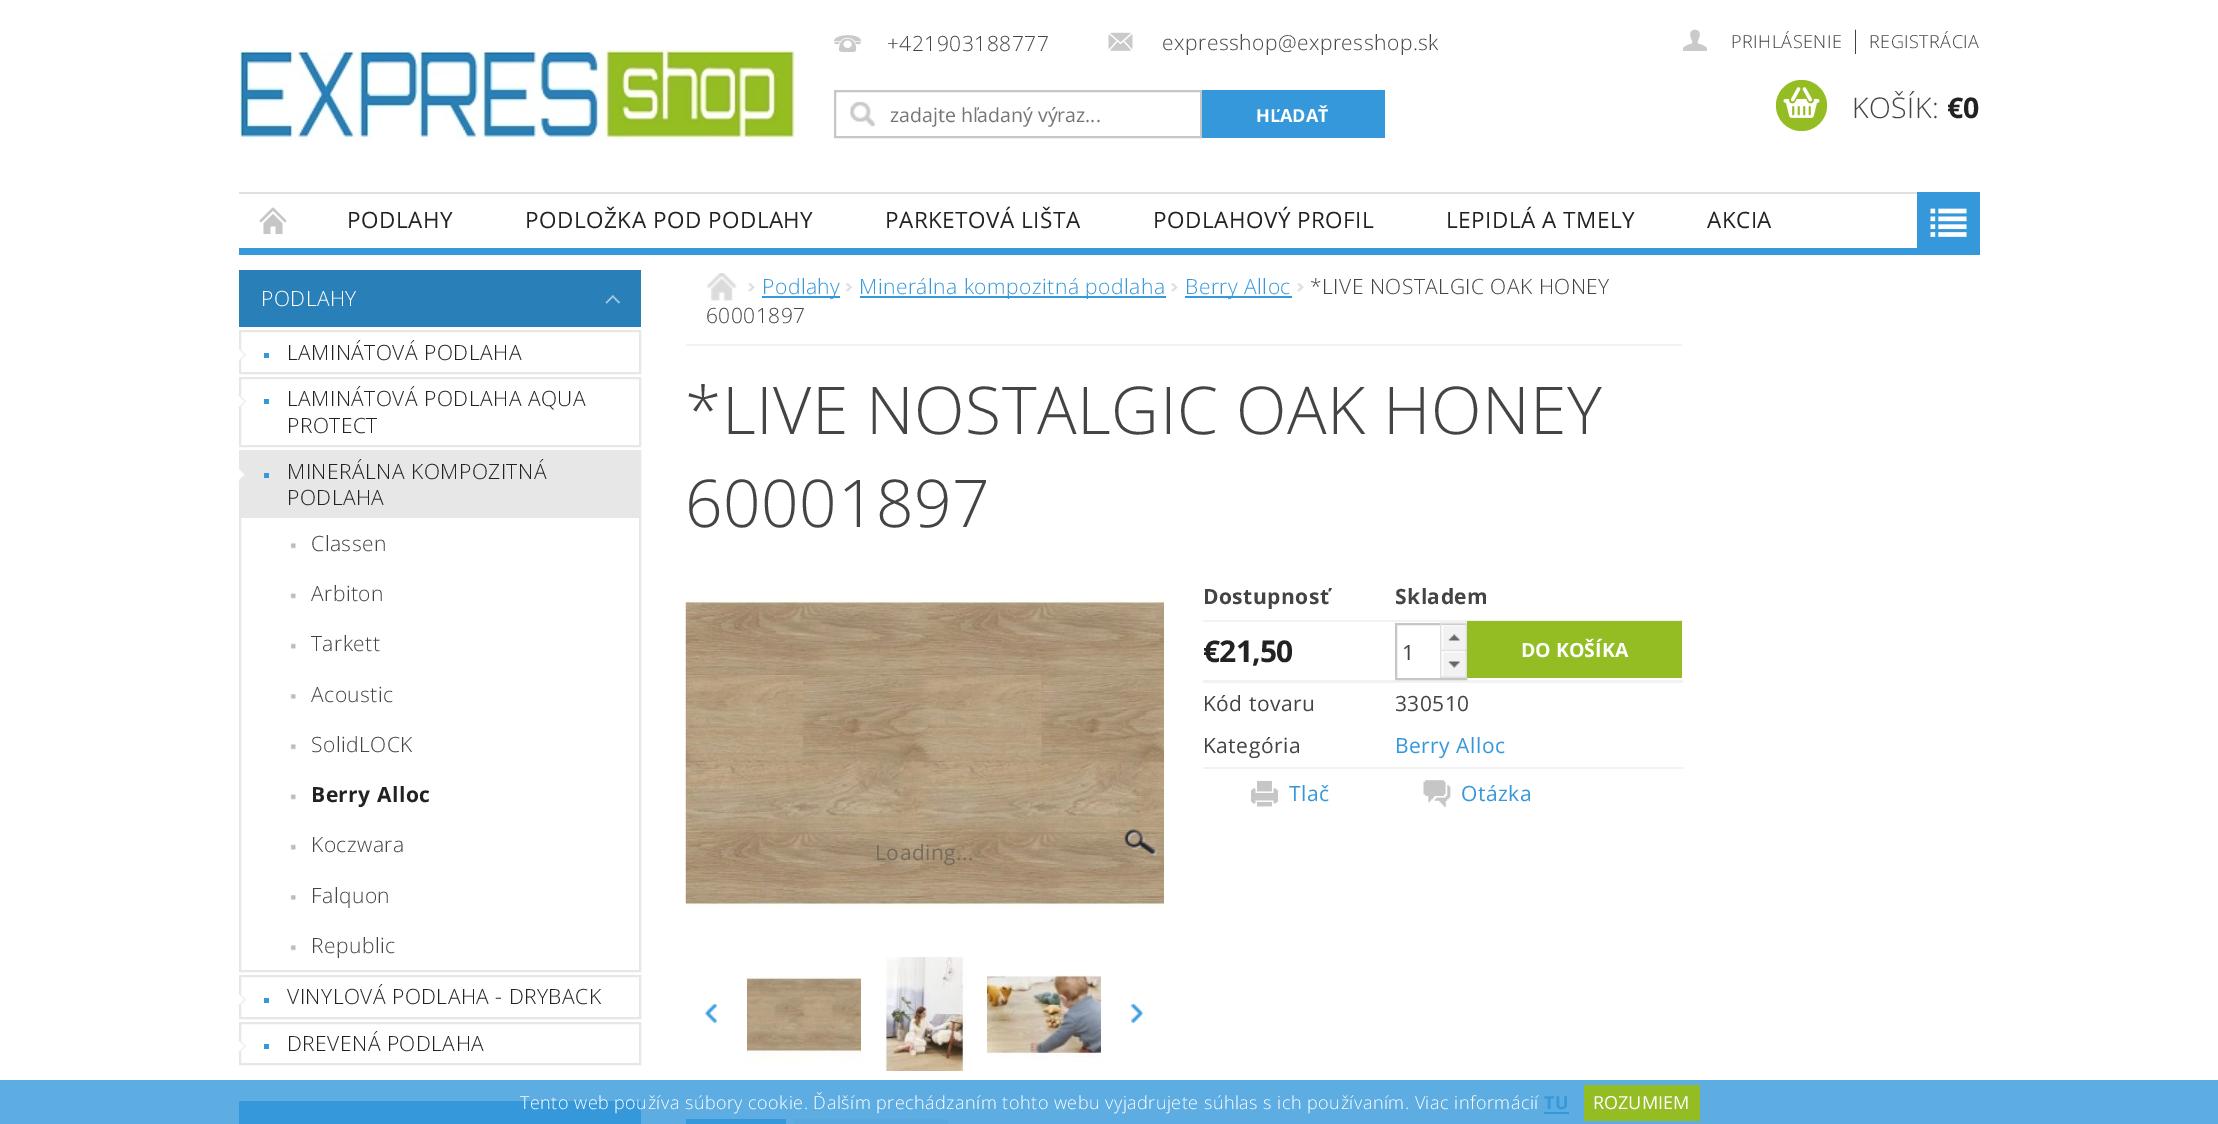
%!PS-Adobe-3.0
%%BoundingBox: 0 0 2218 1124
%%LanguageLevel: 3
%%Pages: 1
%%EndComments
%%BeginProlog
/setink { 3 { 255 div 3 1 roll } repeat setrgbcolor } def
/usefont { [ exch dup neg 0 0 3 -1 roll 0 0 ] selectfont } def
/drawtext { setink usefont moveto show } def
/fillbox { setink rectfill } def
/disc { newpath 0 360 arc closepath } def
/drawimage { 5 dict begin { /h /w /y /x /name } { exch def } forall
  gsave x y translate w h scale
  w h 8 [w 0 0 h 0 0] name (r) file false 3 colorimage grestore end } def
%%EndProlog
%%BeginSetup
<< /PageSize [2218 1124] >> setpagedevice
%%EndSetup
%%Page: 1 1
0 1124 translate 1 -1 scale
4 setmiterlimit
0 0 2218 1124 255 255 255 fillbox
0 1080 2218 44 93 173 226 fillbox
239 248 1678 7 52 152 219 fillbox
(assets/img1.rgb) 240 49 555 92 drawimage
(assets/img2.rgb) 834 35 27 17 drawimage
/OpenSans-Light 21 usefont
68 68 68 setink
887 51 moveto 0.48 0 (+421903188777) ashow
(assets/img3.rgb) 1108 32 25 19 drawimage
1162 50 moveto 0.48 0 (expresshop@expresshop.sk) ashow
(assets/img4.rgb) 850 101 25 26 drawimage
198 198 198 setink
2 setlinewidth
835 91 366 46 rectstroke
(zadajte hľadaný výraz...) 890 122 /OpenSans-Regular 19.5 117 117 117 drawtext
1202 90 183 48 52 152 219 fillbox
(HĽADAŤ) 1256 122 /OpenSans-Bold 18 255 255 255 drawtext
(assets/img5.rgb) 1683 29 24 22 drawimage
/OpenSans-Light 18 usefont
68 68 68 setink
1731 48 moveto 0.48 0 (PRIHLÁSENIE) ashow
/OpenSans-Light 24 usefont
1849 48 moveto 0.48 0 (|) ashow
/OpenSans-Light 18 usefont
1869 48 moveto 0.48 0 (REGISTRÁCIA) ashow
148 189 35 setink
1801.5 105.5 25.5 disc fill
(assets/img6.rgb) 1783 87 37 31 drawimage
/OpenSans-Light 28.5 usefont
68 68 68 setink
1852 118 moveto 0.48 0 (KOŠÍK:) ashow
/OpenSans-Bold 28.5 usefont
34 34 34 setink
1947 118 moveto -0.75 0 (€0) ashow
239 192 1678 2 224 224 224 fillbox
(assets/img7.rgb) 259 207 28 27 drawimage
/OpenSans-Regular 22.5 usefont
34 34 34 setink
347 228 moveto 0.48 0 (PODLAHY) ashow
525 228 moveto 0.48 0 (PODLOŽKA POD PODLAHY) ashow
885 228 moveto 0.48 0 (PARKETOVÁ LIŠTA) ashow
1153 228 moveto 0.48 0 (PODLAHOVÝ PROFIL) ashow
1446 228 moveto 0.48 0 (LEPIDLÁ A TMELY) ashow
1707 228 moveto 0.48 0 (AKCIA) ashow
1917 192 63 63 52 152 219 fillbox
(assets/img8.rgb) 1930 208 37 29 drawimage
239 270 402 57 41 128 185 fillbox
(assets/img9.rgb) 605 295 15 9 drawimage
/OpenSans-Light 21 usefont
255 255 255 setink
261 306 moveto 0.48 0 (PODLAHY) ashow
231 231 231 setink
240 331 400 42 rectstroke
(assets/img10.rgb) 238 348 8 14 drawimage
264 353 5 5 52 152 219 fillbox
34 34 34 setink
287 360 moveto 0.48 0 (LAMINÁTOVÁ PODLAHA) ashow
231 231 231 setink
240 378 400 68 rectstroke
(assets/img11.rgb) 238 394 8 14 drawimage
264 399 5 5 52 152 219 fillbox
34 34 34 setink
287 406 moveto 0.48 0 (LAMINÁTOVÁ PODLAHA AQUA) ashow
287 433 moveto 0.48 0 (PROTECT) ashow
231 231 231 setink
240 451 400 520 rectstroke
241 452 398 66 231 231 231 fillbox
(assets/img12.rgb) 238 468 7 14 drawimage
264 473 5 5 52 152 219 fillbox
34 34 34 setink
287 479 moveto 0.48 0 (MINERÁLNA KOMPOZITNÁ) ashow
287 505 moveto 0.48 0 (PODLAHA) ashow
(assets/img13.rgb) 290 543 6 6 drawimage
68 68 68 setink
311 551 moveto 0.48 0 (Classen) ashow
(assets/img14.rgb) 290 593 6 6 drawimage
311 601 moveto 0.48 0 (Arbiton) ashow
(assets/img15.rgb) 290 643 6 6 drawimage
311 651 moveto 0.48 0 (Tarkett) ashow
(assets/img16.rgb) 290 694 6 5 drawimage
311 702 moveto 0.48 0 (Acoustic) ashow
(assets/img13.rgb) 290 744 6 6 drawimage
311 752 moveto 0.48 0 (SolidLOCK) ashow
(assets/img14.rgb) 290 794 6 6 drawimage
/OpenSans-Bold 21 usefont
34 34 34 setink
311 802 moveto 0.48 0 (Berry Alloc) ashow
(assets/img15.rgb) 290 844 6 6 drawimage
/OpenSans-Light 21 usefont
68 68 68 setink
311 852 moveto 0.48 0 (Koczwara) ashow
(assets/img16.rgb) 290 895 6 5 drawimage
311 903 moveto 0.48 0 (Falquon) ashow
(assets/img13.rgb) 290 945 6 6 drawimage
311 953 moveto 0.48 0 (Republic) ashow
231 231 231 setink
240 976 400 42 rectstroke
(assets/img10.rgb) 238 993 8 14 drawimage
264 998 5 5 52 152 219 fillbox
34 34 34 setink
287 1004 moveto 0.48 0 (VINYLOVÁ PODLAHA - DRYBACK) ashow
231 231 231 setink
240 1023 400 41 rectstroke
(assets/img17.rgb) 238 1039 8 14 drawimage
264 1044 5 5 52 152 219 fillbox
34 34 34 setink
287 1051 moveto 0.48 0 (DREVENÁ PODLAHA) ashow
239 1101 402 23 52 152 219 fillbox
686 344 996 2 242 242 242 fillbox
(assets/img18.rgb) 706 273 31 28 drawimage
(assets/img19.rgb) 748 283 7 9 drawimage
762 296 78 2 52 152 219 fillbox
762 294 moveto 0.48 0 (Podlahy) ashow
(assets/img20.rgb) 846 283 7 9 drawimage
860 296 306 2 52 152 219 fillbox
859 294 moveto 0.48 0 (Minerálna kompozitná podlaha) ashow
(assets/img19.rgb) 1171 283 7 9 drawimage
1185 296 107 2 52 152 219 fillbox
1185 294 moveto 0.48 0 (Berry Alloc) ashow
(assets/img19.rgb) 1297 283 7 9 drawimage
68 68 68 setink
1310 294 moveto 0.48 0 (*LIVE NOSTALGIC OAK HONEY) ashow
706 323 moveto 0.48 0 (60001897) ashow
/OpenSans-Light 66 usefont
685 434 moveto 0.48 0 (*LIVE NOSTALGIC OAK HONEY) ashow
685 527 moveto 0.48 0 (60001897) ashow
1203 620 480 2 242 242 242 fillbox
/OpenSans-Bold 21 usefont
68 68 68 setink
1203 604 moveto 0.48 0 (Dostupnosť) ashow
1395 604 moveto 0.48 0 (Skladem) ashow
1203 680 480 3 242 242 242 fillbox
/OpenSans-Bold 30 usefont
34 34 34 setink
1203 662 moveto -0.75 0 (€21,50) ashow
198 198 198 setink
1396 624 70 55 rectstroke
(assets/img21.rgb) 1440 622 27 28 drawimage
(1) 1402 660 /OpenSans-Regular 21 68 68 68 drawtext
(assets/img22.rgb) 1440 649 27 29 drawimage
1467 621 215 57 148 189 35 fillbox
(DO KOŠÍKA) 1521 657 /OpenSans-Bold 19.5 255 255 255 drawtext
/OpenSans-Regular 21 usefont
68 68 68 setink
1203 711 moveto 0.48 0 (Kód tovaru) ashow
1395 711 moveto 0.48 0 (330510) ashow
1203 767 480 2 242 242 242 fillbox
68 68 68 setink
1203 753 moveto 0.48 0 (Kategória) ashow
52 152 219 setink
1395 753 moveto 0.48 0 (Berry Alloc) ashow
(assets/img23.rgb) 1251 780 27 27 drawimage
1289 801 moveto 0.48 0 (Tlač) ashow
(assets/img24.rgb) 1423 780 28 28 drawimage
1461 801 moveto 0.48 0 (Otázka) ashow
(assets/img25.rgb) 685 593 479 315 drawimage
118 108 93 setink
875 860 moveto 0.48 0 (Loading...) ashow
(assets/img26.rgb) 1124 829 33 28 drawimage
705 1004 12 19 52 152 219 fillbox
(assets/img27.rgb) 705 1004 12 19 drawimage
(assets/img28.rgb) 747 975 114 87 drawimage
(assets/img29.rgb) 885 957 82 114 drawimage
(assets/img30.rgb) 987 974 114 89 drawimage
1131 1004 12 19 52 152 219 fillbox
(assets/img31.rgb) 1131 1004 12 19 drawimage
686 1119 100 5 52 152 219 fillbox
794 1119 154 5 89 169 223 fillbox
/OpenSans-Light 18 usefont
255 255 255 setink
520 1109 moveto 0.48 0 (Tento web používa súbory cookie. Ďalším prechádzaním tohto webu vyjadrujete súhlas s ich používaním. Viac informácií) ashow
/OpenSans-Bold 18 usefont
52 152 219 setink
1544 1109 moveto 0.48 0 (TU) ashow
1544 1112 25 2 52 152 219 fillbox
1584 1085 116 36 148 189 35 fillbox
(ROZUMIEM) 1593 1109 /OpenSans-Regular 18 255 255 255 drawtext
showpage
%%EOF
